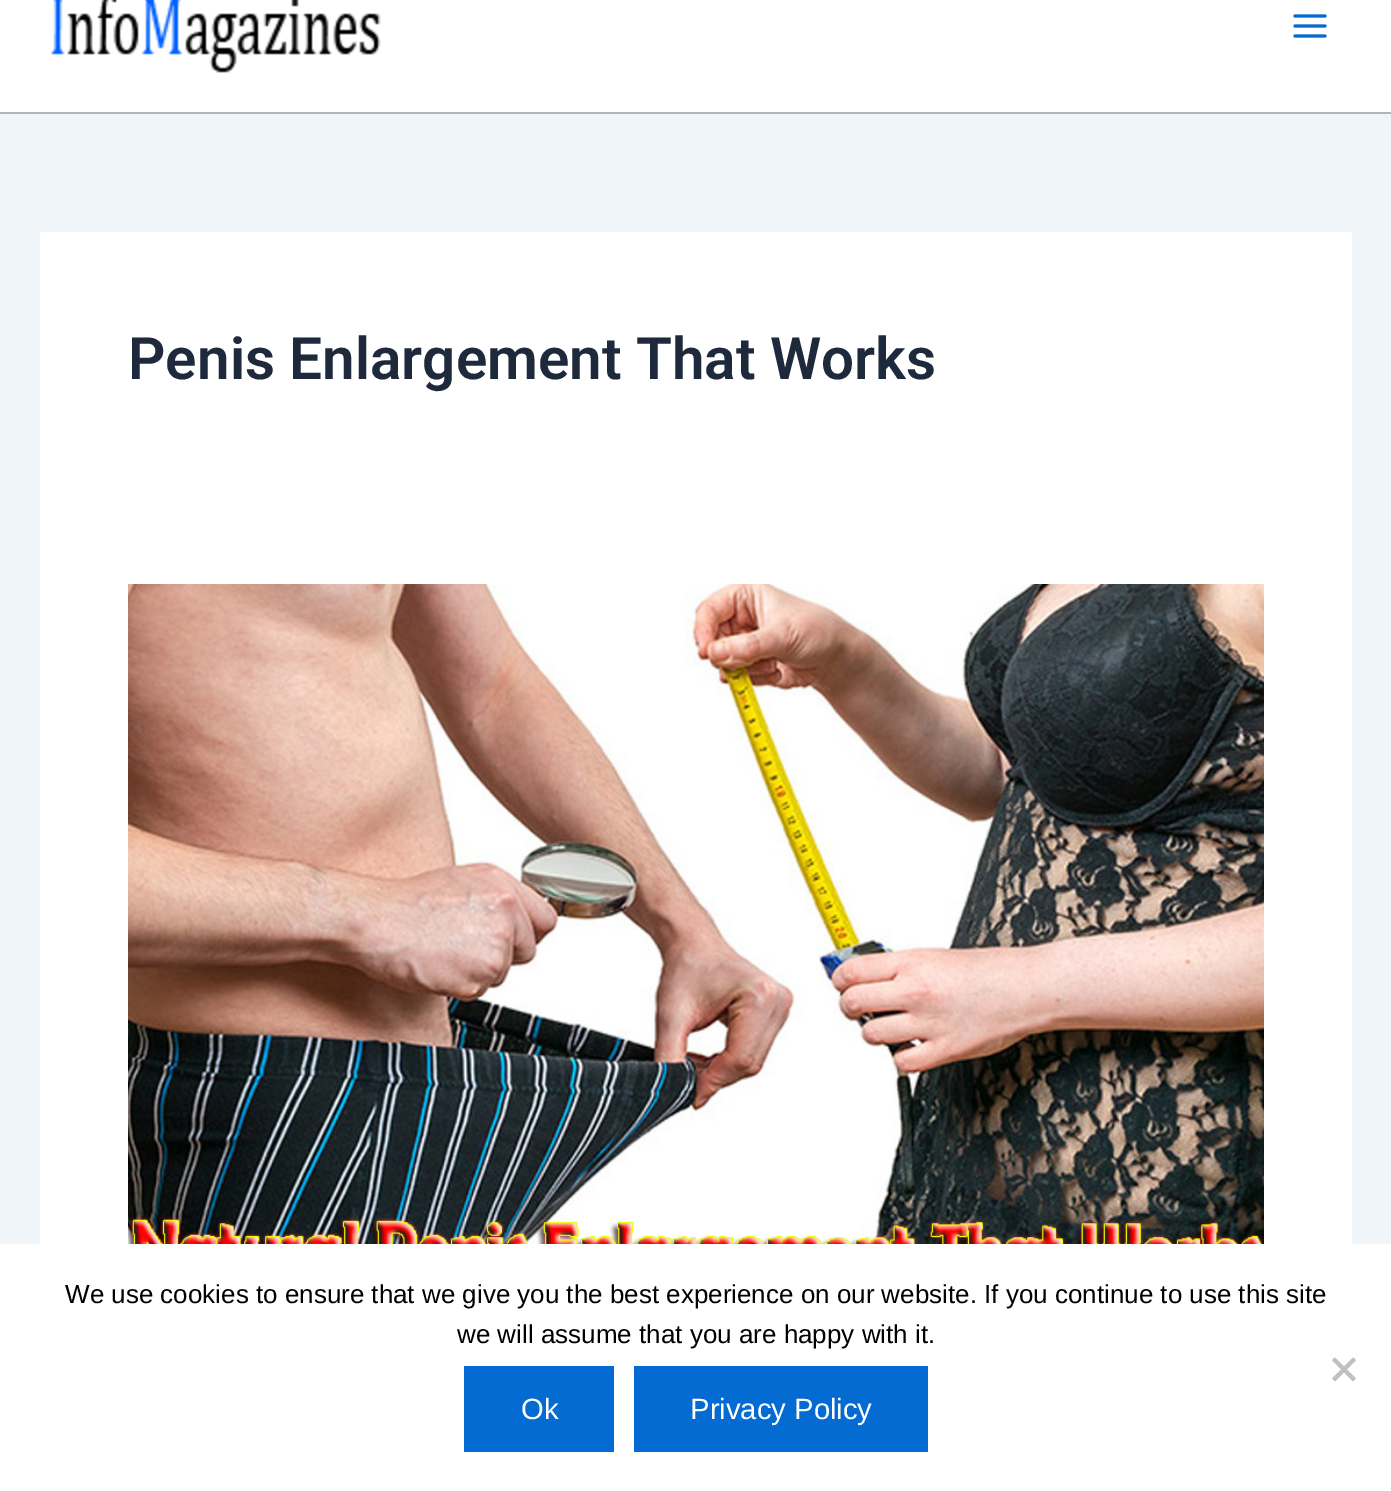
%!PS-Adobe-3.0
%%BoundingBox: 0 0 1391 1491
%%LanguageLevel: 3
%%Pages: 1
%%EndComments
%%BeginProlog
/setink { 3 { 255 div 3 1 roll } repeat setrgbcolor } def
/usefont { [ exch dup neg 0 0 3 -1 roll 0 0 ] selectfont } def
/drawtext { setink usefont moveto show } def
/fillbox { setink rectfill } def
/drawimage { 5 dict begin { /h /w /y /x /name } { exch def } forall
  gsave x y translate w h scale
  w h 8 [w 0 0 h 0 0] name (r) file false 3 colorimage grestore end } def
%%EndProlog
%%BeginSetup
<< /PageSize [1391 1491] >> setpagedevice
%%EndSetup
%%Page: 1 1
0 1491 translate 1 -1 scale
4 setmiterlimit
0 0 1391 1491 240 245 250 fillbox
0 0 1391 112 255 255 255 fillbox
0 112 1391 2 173 182 190 fillbox
(assets/img1.rgb) 51 0 330 73 drawimage
(assets/img2.rgb) 1293 14 34 24 drawimage
40 232 1312 1012 255 255 255 fillbox
(Penis Enlargement That Works) 128 379 /Roboto-SemiBold 58.4 30 41 59 drawtext
(assets/img3.rgb) 128 584 1136 660 drawimage
0 1244 1391 247 255 255 255 fillbox
(We use cookies to ensure that we give you the best experience on our website. If you continue to use this site) 65 1303 /LiberationSans-Regular 26 0 0 0 drawtext
(we will assume that you are happy with it.) 457 1343 /LiberationSans-Regular 26 0 0 0 drawtext
192 192 192 setink
1353 1357.5 moveto 1356 1360 lineto 1335 1381.5 lineto 1332 1378.5 lineto closepath fill
1332 1360 moveto 1335 1357.5 lineto 1356 1378.5 lineto 1353 1381.5 lineto closepath fill
464 1366 150 86 4 107 210 fillbox
(Ok) 521 1419 /LiberationSans-Regular 29.25 255 255 255 drawtext
634 1366 294 86 4 107 210 fillbox
(Privacy Policy) 690 1419 /LiberationSans-Regular 29.25 255 255 255 drawtext
showpage
%%EOF
